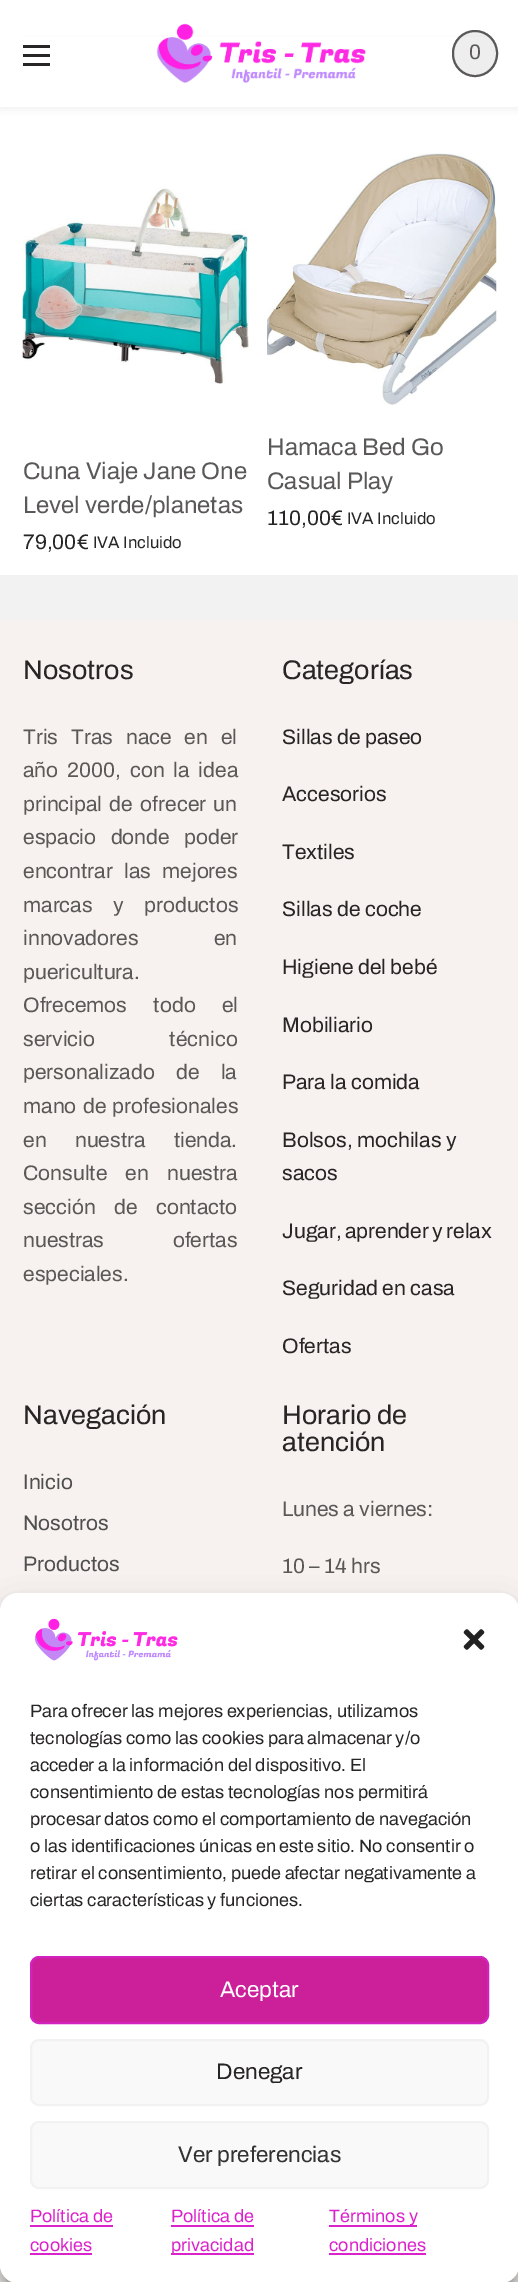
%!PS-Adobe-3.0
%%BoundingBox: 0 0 518 2282
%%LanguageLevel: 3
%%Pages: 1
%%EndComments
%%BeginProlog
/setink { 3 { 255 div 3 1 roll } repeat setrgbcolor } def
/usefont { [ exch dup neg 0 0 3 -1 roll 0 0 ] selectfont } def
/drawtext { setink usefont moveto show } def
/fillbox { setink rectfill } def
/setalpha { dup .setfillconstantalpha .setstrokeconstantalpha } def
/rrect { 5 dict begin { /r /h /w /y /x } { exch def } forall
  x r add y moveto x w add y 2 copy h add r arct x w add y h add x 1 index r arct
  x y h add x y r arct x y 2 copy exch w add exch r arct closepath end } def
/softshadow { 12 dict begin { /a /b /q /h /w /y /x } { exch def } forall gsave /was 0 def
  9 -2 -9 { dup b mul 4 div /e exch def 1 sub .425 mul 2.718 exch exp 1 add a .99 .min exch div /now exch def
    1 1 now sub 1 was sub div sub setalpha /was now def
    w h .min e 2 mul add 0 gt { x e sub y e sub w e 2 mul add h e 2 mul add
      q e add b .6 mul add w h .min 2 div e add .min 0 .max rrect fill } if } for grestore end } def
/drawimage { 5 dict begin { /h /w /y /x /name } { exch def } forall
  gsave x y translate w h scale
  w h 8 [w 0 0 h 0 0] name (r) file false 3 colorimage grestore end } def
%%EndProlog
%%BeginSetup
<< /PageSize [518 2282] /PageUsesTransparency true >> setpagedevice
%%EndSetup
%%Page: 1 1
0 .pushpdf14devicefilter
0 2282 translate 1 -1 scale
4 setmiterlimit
0 0 518 2282 242 242 242 fillbox
0 0 518 575 255 255 255 fillbox
23 35 474 2 238 238 238 fillbox
gsave
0 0 moveto 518 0 lineto 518 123 lineto 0 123 lineto closepath 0 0 moveto 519 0 lineto 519 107 lineto 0 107 lineto closepath eoclip newpath
0 0 0 setink
0 3 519 107 0 4 0.06 softshadow
grestore
0.8 setalpha
0 35 518 72 255 255 255 fillbox
1 setalpha
23 45 27 3 39 37 37 fillbox
23 54 27 3 39 37 37 fillbox
23 63 27 3 39 37 37 fillbox
(assets/img1.rgb) 156 23 210 60 drawimage
0.1 setalpha
90 89 88 setink
453 31 44 45 22 rrect fill
1 setalpha
2 setlinewidth
453 31 44 45 22 rrect stroke
(0) 469 59 /Archivo-SemiBold 21 90 89 88 drawtext
(assets/img2.rgb) 22 188 227 196 drawimage
(Cuna Viaje Jane One) 23 479 /Archivo-SemiBold 24 90 89 88 drawtext
(Level verde/planetas) 23 513 /Archivo-SemiBold 24 90 89 88 drawtext
(79,00€) 23 549 /Archivo-SemiBold 21 39 37 37 drawtext
(IVA Incluido) 93 548 /Archivo-SemiBold 16.75 39 37 37 drawtext
(assets/img3.rgb) 267 153 230 252 drawimage
(Hamaca Bed Go) 267 455 /Archivo-SemiBold 24 90 89 88 drawtext
(Casual Play) 267 489 /Archivo-SemiBold 24 90 89 88 drawtext
(110,00€) 267 525 /Archivo-SemiBold 21 39 37 37 drawtext
(IVA Incluido) 347 524 /Archivo-SemiBold 16.75 39 37 37 drawtext
0 620 518 991 247 242 239 fillbox
(Nosotros) 23 679 /Archivo-SemiBold 27 39 37 37 drawtext
/Archivo-SemiBold 21 usefont
90 89 88 setink
23 744 moveto 8.5 0 32 (Tris Tras nace en el) widthshow
23 777 moveto 4.5 0 32 (año 2000, con la idea) widthshow
23 811 moveto 3 0 32 (principal de ofrecer un) widthshow
23 844 moveto 10 0 32 (espacio donde poder) widthshow
23 878 moveto 7 0 32 (encontrar las mejores) widthshow
23 912 moveto 16 0 32 (marcas y productos) widthshow
23 945 moveto 71 0 32 (innovadores en) widthshow
(puericultura.) 23 979 /Archivo-SemiBold 21 90 89 88 drawtext
23 1012 moveto 22 0 32 (Ofrecemos todo el) widthshow
23 1046 moveto 70 0 32 (servicio técnico) widthshow
23 1079 moveto 17 0 32 (personalizado de la) widthshow
23 1113 moveto 2 0 32 (mano de profesionales) widthshow
23 1147 moveto 24 0 32 (en nuestra tienda.) widthshow
23 1180 moveto 14 0 32 (Consulte en nuestra) widthshow
23 1214 moveto 14 0 32 (sección de contacto) widthshow
23 1247 moveto 64 0 32 (nuestras ofertas) widthshow
(especiales.) 23 1281 /Archivo-SemiBold 21 90 89 88 drawtext
(Categorías) 282 679 /Archivo-SemiBold 27 39 37 37 drawtext
(Sillas de paseo) 282 744 /Archivo-SemiBold 21 39 37 37 drawtext
(Accesorios) 282 801 /Archivo-SemiBold 21 39 37 37 drawtext
(Textiles) 282 859 /Archivo-SemiBold 21 39 37 37 drawtext
(Sillas de coche) 282 916 /Archivo-SemiBold 21 39 37 37 drawtext
(Higiene del bebé) 282 974 /Archivo-SemiBold 21 39 37 37 drawtext
(Mobiliario) 282 1032 /Archivo-SemiBold 21 39 37 37 drawtext
(Para la comida) 282 1089 /Archivo-SemiBold 21 39 37 37 drawtext
(Bolsos, mochilas y) 282 1147 /Archivo-SemiBold 21 39 37 37 drawtext
(sacos) 282 1180 /Archivo-SemiBold 21 39 37 37 drawtext
282 1238 moveto -1 0 32 (Jugar, aprender y relax) widthshow
(Seguridad en casa) 282 1295 /Archivo-SemiBold 21 39 37 37 drawtext
(Ofertas) 282 1353 /Archivo-SemiBold 21 39 37 37 drawtext
(Navegación) 23 1424 /Archivo-SemiBold 27 39 37 37 drawtext
(Inicio) 23 1489 /Archivo-SemiBold 21 79 79 79 drawtext
(Nosotros) 23 1530 /Archivo-SemiBold 21 79 79 79 drawtext
(Productos) 23 1571 /Archivo-SemiBold 21 79 79 79 drawtext
(Horario de) 282 1424 /Archivo-SemiBold 27 39 37 37 drawtext
(atención) 282 1451 /Archivo-SemiBold 27 39 37 37 drawtext
(Lunes a viernes:) 282 1516 /Archivo-SemiBold 21 90 89 88 drawtext
(10 – 14 hrs) 282 1573 /Archivo-SemiBold 21 90 89 88 drawtext
0 2265 518 17 247 242 239 fillbox
0 0 0 setink
0 1602 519 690 18 4.5 0.23 softshadow
0 1608 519 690 18 15 0.19 softshadow
255 255 255 setink
0 1593 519 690 18 rrect fill
(assets/img4.rgb) 34 1618 144 43 drawimage
(assets/img5.rgb) 463 1629 22 21 drawimage
(Para ofrecer las mejores experiencias, utilizamos) 30 1717 /Archivo-SemiBold 18 39 37 37 drawtext
(tecnologías como las cookies para almacenar y/o) 30 1744 /Archivo-SemiBold 18 39 37 37 drawtext
(acceder a la información del dispositivo. El) 30 1771 /Archivo-SemiBold 18 39 37 37 drawtext
(consentimiento de estas tecnologías nos permitirá) 30 1798 /Archivo-SemiBold 18 39 37 37 drawtext
(procesar datos como el comportamiento de navegación) 30 1825 /Archivo-SemiBold 18 39 37 37 drawtext
(o las identificaciones únicas en este sitio. No consentir o) 30 1852 /Archivo-SemiBold 18 39 37 37 drawtext
(retirar el consentimiento, puede afectar negativamente a) 30 1879 /Archivo-SemiBold 18 39 37 37 drawtext
(ciertas características y funciones.) 30 1906 /Archivo-SemiBold 18 39 37 37 drawtext
204 32 155 setink
31 1957 457 66 8 rrect gsave fill grestore
211 33 190 setink
stroke
(Aceptar) 220 1997 /Archivo-SemiBold 22.5 255 255 255 drawtext
249 249 249 setink
31 2040 457 65 8 rrect gsave fill grestore
242 242 242 setink
stroke
(Denegar) 216 2079 /Archivo-SemiBold 22.5 39 37 37 drawtext
249 249 249 setink
31 2122 457 66 8 rrect gsave fill grestore
242 242 242 setink
stroke
(Ver preferencias) 178 2162 /Archivo-SemiBold 22.5 51 51 51 drawtext
(Política de) 30 2222 /Archivo-SemiBold 18 219 35 203 drawtext
30 2225 83 2 219 35 203 fillbox
(cookies) 30 2251 /Archivo-SemiBold 18 219 35 203 drawtext
30 2253 62 2 219 35 203 fillbox
(Política de) 171 2222 /Archivo-SemiBold 18 219 35 203 drawtext
171 2225 83 2 219 35 203 fillbox
171 2253 83 2 219 35 203 fillbox
(privacidad) 171 2251 /Archivo-SemiBold 18 219 35 203 drawtext
329 2225 88 2 219 35 203 fillbox
(Términos y) 329 2222 /Archivo-SemiBold 18 219 35 203 drawtext
(condiciones) 329 2251 /Archivo-SemiBold 18 219 35 203 drawtext
329 2253 97 2 219 35 203 fillbox
.poppdf14devicefilter showpage
%%EOF
